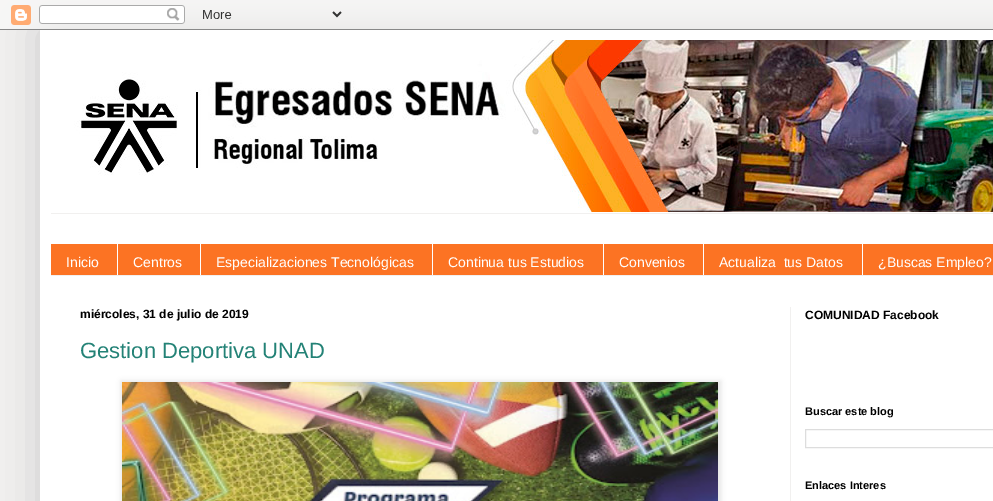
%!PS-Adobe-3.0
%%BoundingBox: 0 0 993 501
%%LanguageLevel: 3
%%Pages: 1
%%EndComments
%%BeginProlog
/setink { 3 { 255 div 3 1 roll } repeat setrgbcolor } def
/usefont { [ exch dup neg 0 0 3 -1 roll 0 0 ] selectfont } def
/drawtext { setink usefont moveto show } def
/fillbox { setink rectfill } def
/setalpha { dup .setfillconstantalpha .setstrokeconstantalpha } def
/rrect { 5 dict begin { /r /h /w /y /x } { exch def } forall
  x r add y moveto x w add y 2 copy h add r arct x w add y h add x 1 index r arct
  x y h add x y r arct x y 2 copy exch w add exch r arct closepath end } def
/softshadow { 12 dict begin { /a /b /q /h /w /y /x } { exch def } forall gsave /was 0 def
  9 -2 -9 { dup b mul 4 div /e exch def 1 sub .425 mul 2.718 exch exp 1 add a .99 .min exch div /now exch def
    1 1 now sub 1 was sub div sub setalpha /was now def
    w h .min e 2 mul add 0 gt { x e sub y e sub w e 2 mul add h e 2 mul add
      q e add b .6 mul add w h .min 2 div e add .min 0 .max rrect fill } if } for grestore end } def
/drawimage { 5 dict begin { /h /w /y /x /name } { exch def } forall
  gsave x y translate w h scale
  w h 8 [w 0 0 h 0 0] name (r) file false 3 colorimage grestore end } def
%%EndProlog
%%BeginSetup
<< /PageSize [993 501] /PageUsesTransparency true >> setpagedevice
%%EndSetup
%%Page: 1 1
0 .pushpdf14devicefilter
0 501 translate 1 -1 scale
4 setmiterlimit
0 0 993 501 241 240 239 fillbox
0 0 0 setink
40 30 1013 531 0 20 0.15 softshadow
(assets/img1.rgb) 0 0 993 30 drawimage
40 30 953 471 255 255 255 fillbox
(assets/img2.rgb) 50 40 943 172 drawimage
51 213 942 1 241 240 239 fillbox
51 244 942 31 252 115 35 fillbox
51 275 942 1 241 240 239 fillbox
(Inicio) 66 267 /LiberationSans-Regular 14 255 255 255 drawtext
117 244 1 31 255 255 255 fillbox
(Centros) 133 267 /LiberationSans-Regular 14 255 255 255 drawtext
200 244 1 31 255 255 255 fillbox
(Especializaciones Tecnológicas) 216 267 /LiberationSans-Regular 14 255 255 255 drawtext
432 244 1 31 255 255 255 fillbox
(Continua tus Estudios) 448 267 /LiberationSans-Regular 14 255 255 255 drawtext
603 244 1 31 255 255 255 fillbox
(Convenios) 619 267 /LiberationSans-Regular 14 255 255 255 drawtext
703 244 1 31 255 255 255 fillbox
(Actualiza  tus Datos) 719 267 /LiberationSans-Regular 14 255 255 255 drawtext
862 244 1 31 255 255 255 fillbox
(¿Buscas Empleo?) 878 267 /LiberationSans-Regular 14 255 255 255 drawtext
790 307 1 194 241 240 239 fillbox
(miércoles, 31 de julio de 2019) 80 318 /LiberationSans-Bold 12 0 0 0 drawtext
(Gestion Deportiva UNAD) 80 358 /LiberationSans-Regular 22 35 130 118 drawtext
0 0 0 setink
121 381 600 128 0 2.5 0.1 softshadow
(assets/img3.rgb) 122 382 596 119 drawimage
(COMUNIDAD Facebook) 805 319 /LiberationSans-Bold 12 0 0 0 drawtext
(Buscar este blog) 805 415 /LiberationSans-Bold 11 0 0 0 drawtext
221 221 221 setink
805.5 429.5 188 18 rectstroke
(Enlaces Interes) 805 489 /LiberationSans-Bold 11 0 0 0 drawtext
.poppdf14devicefilter showpage
%%EOF
